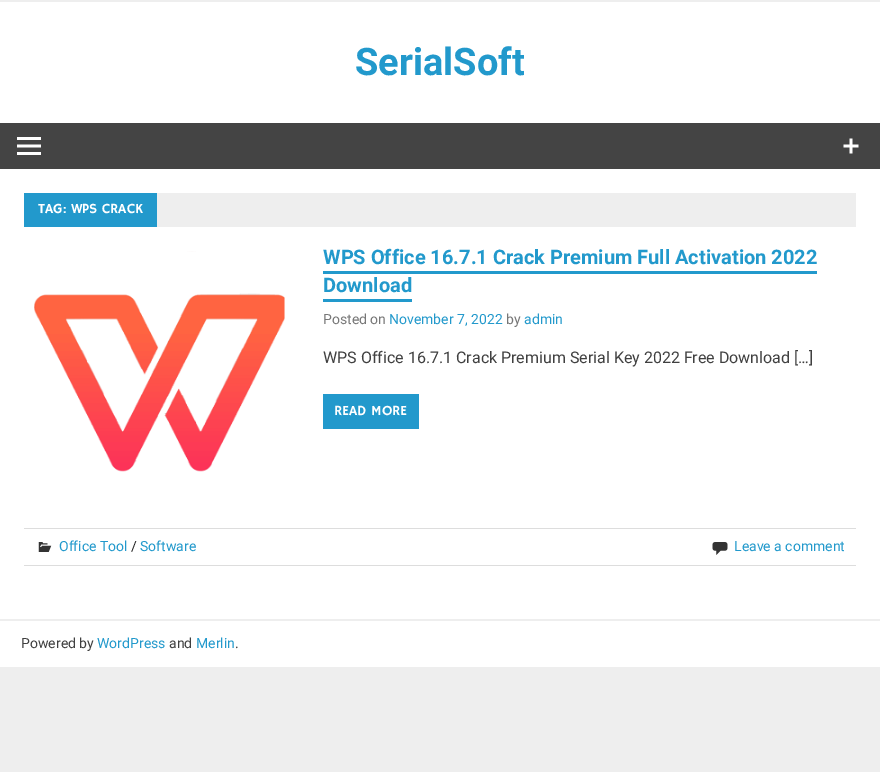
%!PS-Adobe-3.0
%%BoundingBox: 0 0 880 772
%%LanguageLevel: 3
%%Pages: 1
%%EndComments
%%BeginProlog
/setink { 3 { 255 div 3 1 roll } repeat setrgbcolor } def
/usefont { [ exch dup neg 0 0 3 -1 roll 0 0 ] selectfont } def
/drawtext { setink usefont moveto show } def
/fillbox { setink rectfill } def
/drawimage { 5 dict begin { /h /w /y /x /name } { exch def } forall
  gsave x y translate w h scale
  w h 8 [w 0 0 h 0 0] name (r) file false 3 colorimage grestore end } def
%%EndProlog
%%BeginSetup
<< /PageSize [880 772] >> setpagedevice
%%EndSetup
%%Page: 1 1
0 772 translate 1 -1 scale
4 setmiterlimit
0 0 880 772 238 238 238 fillbox
0 2 880 665 255 255 255 fillbox
(SerialSoft) 355 75 /Roboto-Bold 38 34 153 204 drawtext
0 123 880 46 68 68 68 fillbox
(assets/img1.rgb) 843 138 16 16 drawimage
(assets/img2.rgb) 17 137 24 18 drawimage
157 193 699 34 238 238 238 fillbox
24 193 133 34 34 153 204 fillbox
(TAG: WPS CRACK) 38 213 /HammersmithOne-Regular 14 255 255 255 drawtext
(assets/img3.rgb) 34 251 251 221 drawimage
(WPS Office 16.7.1 Crack Premium Full Activation 2022) 323 264 /Roboto-Bold 20 34 153 204 drawtext
(Download) 323 292 /Roboto-Bold 20 34 153 204 drawtext
323 271 494 3 34 153 204 fillbox
323 299 89 3 34 153 204 fillbox
(Posted on) 323 324 /Roboto-Regular 14 119 119 119 drawtext
(November 7, 2022) 389 324 /Roboto-Regular 14 34 153 204 drawtext
(by) 506 324 /Roboto-Regular 14 119 119 119 drawtext
(admin) 524 324 /Roboto-Regular 14 34 153 204 drawtext
(WPS Office 16.7.1 Crack Premium Serial Key 2022 Free Download […]) 323 363 /Roboto-Regular 16 64 64 64 drawtext
323 394 96 35 34 153 204 fillbox
(READ MORE) 334 415 /HammersmithOne-Regular 14 255 255 255 drawtext
24 528 832 1 221 221 221 fillbox
24 565 832 1 221 221 221 fillbox
(assets/img4.rgb) 38 542 14 10 drawimage
(Office Tool) 59 551 /Roboto-Regular 14 34 153 204 drawtext
(/) 131 551 /Roboto-Regular 14 34 34 34 drawtext
(Software) 140 551 /Roboto-Regular 14 34 153 204 drawtext
(assets/img5.rgb) 712 542 16 13 drawimage
(Leave a comment) 734 551 /Roboto-Regular 14 34 153 204 drawtext
0 619 880 2 238 238 238 fillbox
(Powered by) 21 648 /Roboto-Regular 14 64 64 64 drawtext
(WordPress) 97 648 /Roboto-Regular 14 34 153 204 drawtext
(and) 169 648 /Roboto-Regular 14 64 64 64 drawtext
(Merlin) 196 648 /Roboto-Regular 14 34 153 204 drawtext
(.) 235 648 /Roboto-Regular 14 64 64 64 drawtext
showpage
%%EOF
